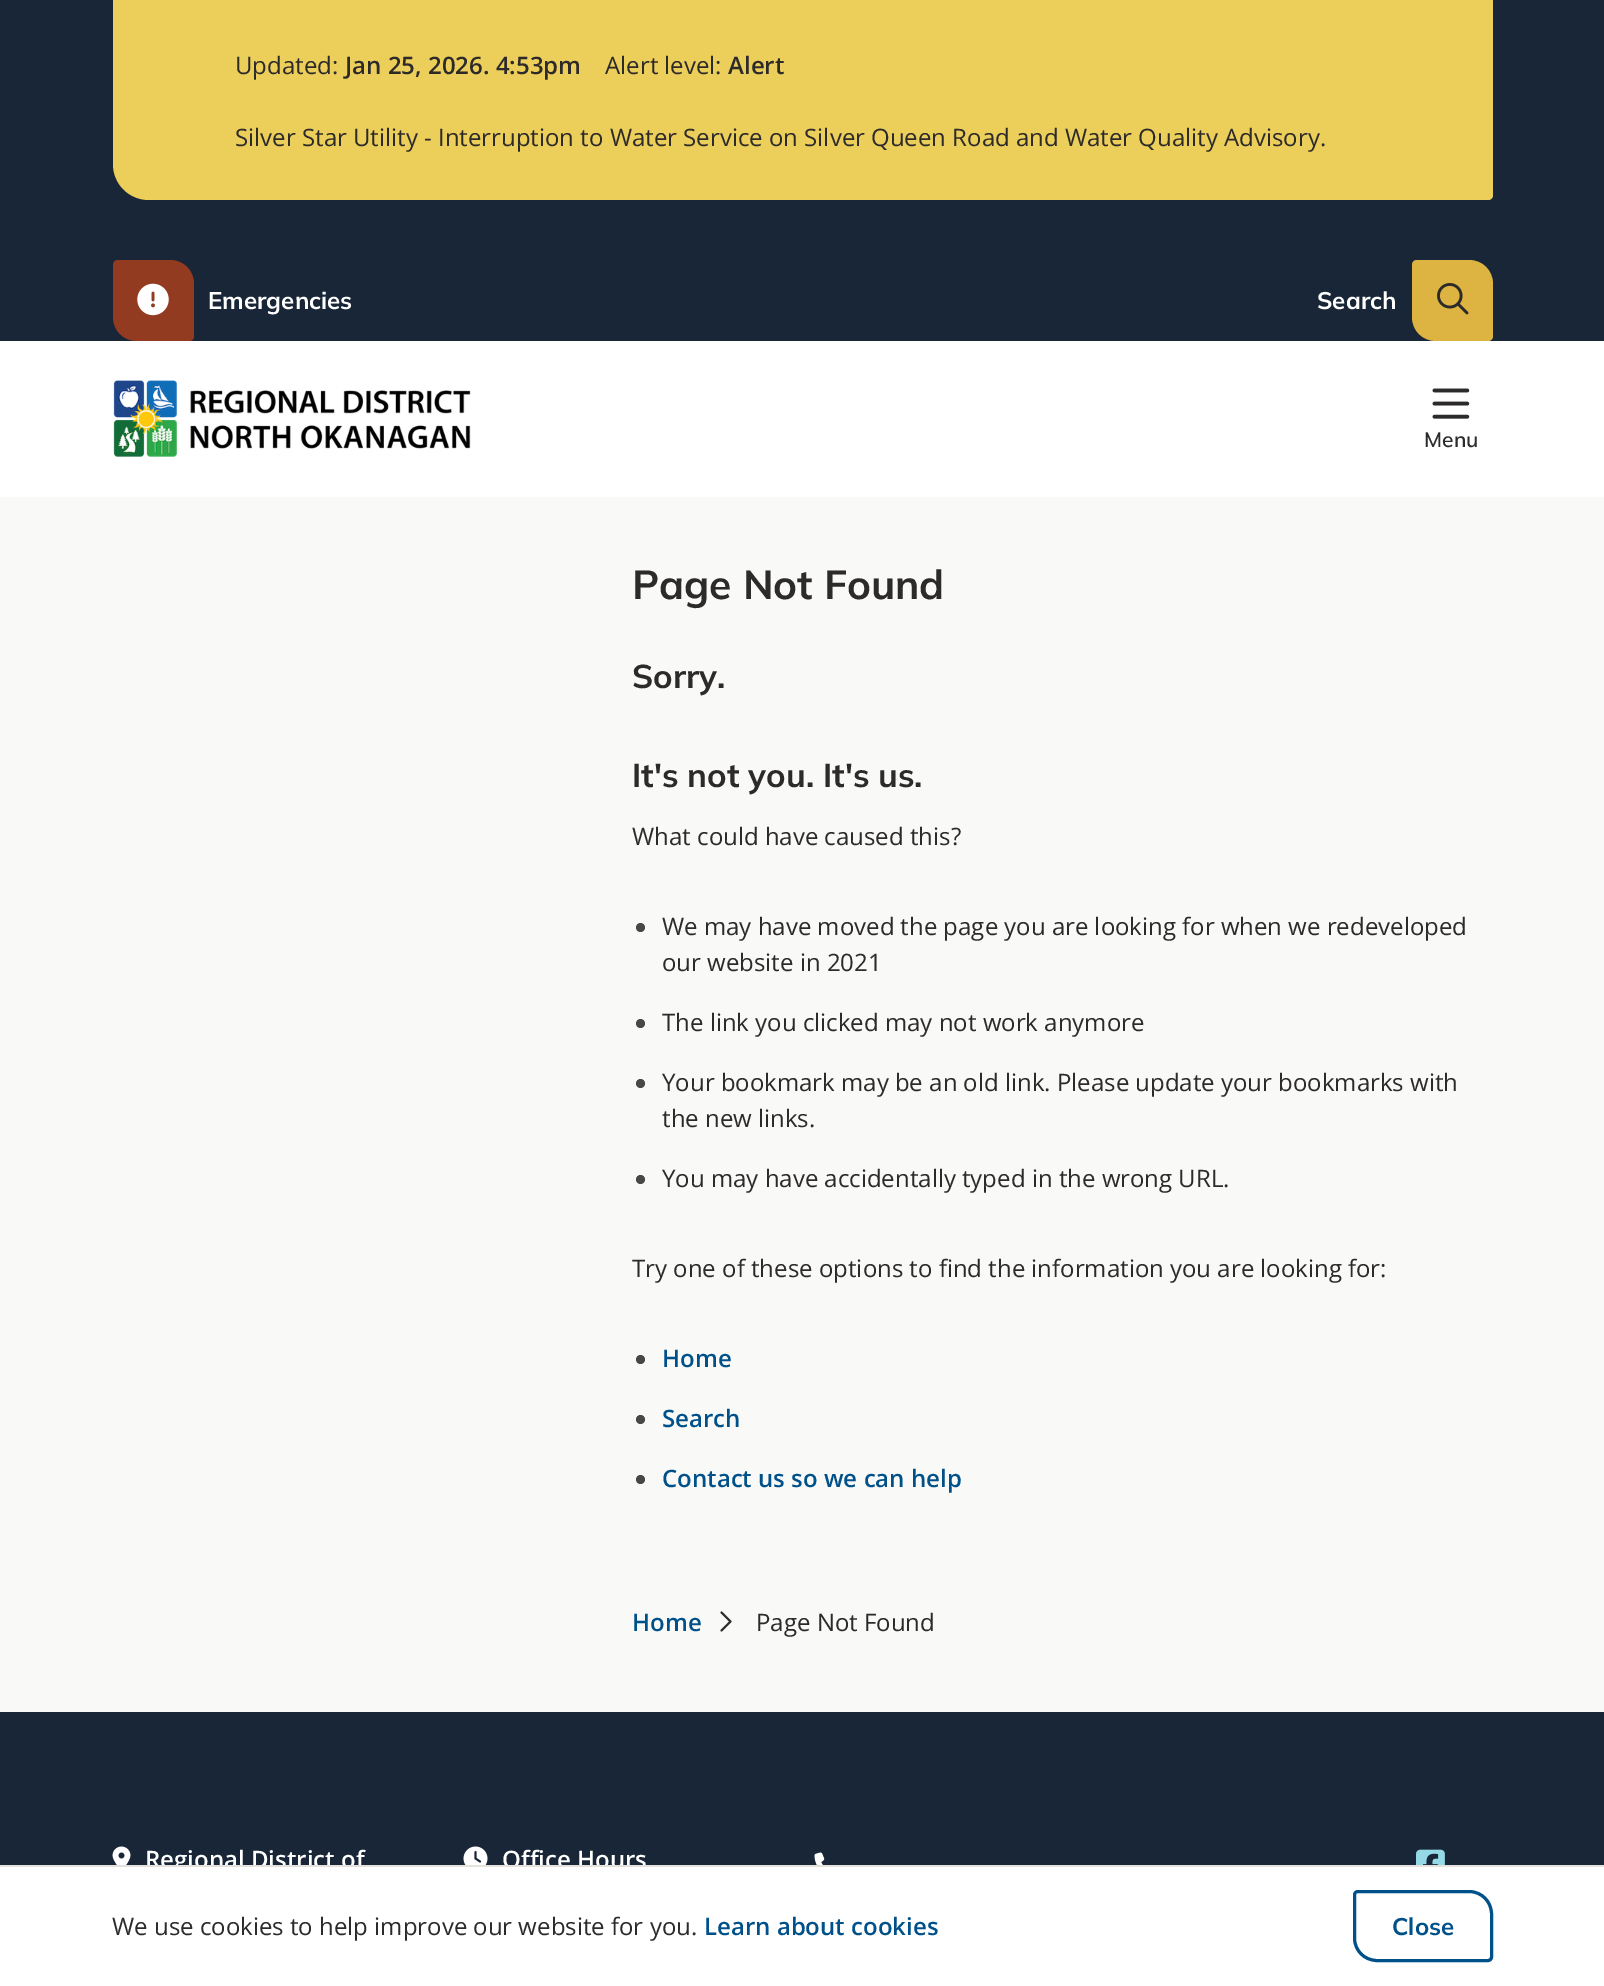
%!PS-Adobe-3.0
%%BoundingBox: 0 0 1604 1986
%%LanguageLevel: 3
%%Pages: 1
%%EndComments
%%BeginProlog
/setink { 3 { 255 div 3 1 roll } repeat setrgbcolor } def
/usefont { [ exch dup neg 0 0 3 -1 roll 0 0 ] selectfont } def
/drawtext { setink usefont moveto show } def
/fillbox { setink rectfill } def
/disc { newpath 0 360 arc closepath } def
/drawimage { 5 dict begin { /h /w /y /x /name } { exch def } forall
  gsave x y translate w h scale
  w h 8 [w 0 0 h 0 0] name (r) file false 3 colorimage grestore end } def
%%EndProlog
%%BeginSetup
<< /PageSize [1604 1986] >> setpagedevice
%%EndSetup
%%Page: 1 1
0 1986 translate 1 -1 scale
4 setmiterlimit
0 0 1604 1986 249 249 248 fillbox
0 0 1604 341 24 38 55 fillbox
236 206 90 setink
118 -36 moveto 1457 -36 lineto 1477 -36 1493 -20 1493 0 curveto 1493 195 lineto 1493 198 1491 200 1488 200 curveto 149 200 lineto 129 200 113 184 113 164 curveto 113 -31 lineto 113 -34 115 -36 118 -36 curveto closepath fill
(Updated:) 235 74 /OpenSans-Regular 24 45 42 42 drawtext
(Jan 25, 2026. 4:53pm) 345 74 /OpenSans-SemiBold 24 45 42 42 drawtext
(Alert level:) 605 74 /OpenSans-Regular 24 45 42 42 drawtext
(Alert) 728 74 /OpenSans-SemiBold 24 45 42 42 drawtext
(Silver Star Utility - Interruption to Water Service on Silver Queen Road and Water Quality Advisory.) 235 146 /OpenSans-Regular 24 45 42 42 drawtext
0 341 1604 156 255 255 255 fillbox
146 59 32 setink
118 260 moveto 170 260 lineto 183.5 260 194 270.5 194 284 curveto 194 336 lineto 194 339 192 341 189 341 curveto 137 341 lineto 123.5 341 113 330.5 113 317 curveto 113 265 lineto 113 262 115 260 118 260 curveto closepath fill
(assets/img1.rgb) 137 283 32 33 drawimage
(Emergencies) 208 309 /Mulish-Bold 24 255 255 255 drawtext
221 179 66 setink
1417 260 moveto 1469 260 lineto 1482.5 260 1493 270.5 1493 284 curveto 1493 336 lineto 1493 339 1491 341 1488 341 curveto 1436 341 lineto 1422.5 341 1412 330.5 1412 317 curveto 1412 265 lineto 1412 262 1414 260 1417 260 curveto closepath fill
(Search) 1317 309 /Mulish-Bold 24 255 255 255 drawtext
(assets/img2.rgb) 1437 282 32 33 drawimage
(assets/img3.rgb) 113 380 358 77 drawimage
(assets/img4.rgb) 1432 388 38 31 drawimage
(Menu) 1424 447 /Mulish-SemiBold 21 45 42 42 drawtext
(Page Not Found) 632 599 /Mulish-Bold 40.5 45 42 42 drawtext
(Sorry.) 632 688 /Mulish-Bold 33 45 42 42 drawtext
(It's not you. It's us.) 632 787 /Mulish-Bold 33 45 42 42 drawtext
(What could have caused this?) 632 845 /OpenSans-Regular 24 45 42 42 drawtext
74 72 70 setink
640.5 927.5 4.5 disc fill
(We may have moved the page you are looking for when we redeveloped) 662 935 /OpenSans-Regular 24 45 42 42 drawtext
(our website in 2021) 662 971 /OpenSans-Regular 24 45 42 42 drawtext
74 72 70 setink
640.5 1023.5 4.5 disc fill
(The link you clicked may not work anymore) 662 1031 /OpenSans-Regular 24 45 42 42 drawtext
74 72 70 setink
640.5 1083.5 4.5 disc fill
(Your bookmark may be an old link. Please update your bookmarks with) 662 1091 /OpenSans-Regular 24 45 42 42 drawtext
(the new links.) 662 1127 /OpenSans-Regular 24 45 42 42 drawtext
74 72 70 setink
640.5 1179.5 4.5 disc fill
(You may have accidentally typed in the wrong URL.) 662 1187 /OpenSans-Regular 24 45 42 42 drawtext
(Try one of these options to find the information you are looking for:) 632 1277 /OpenSans-Regular 24 45 42 42 drawtext
74 72 70 setink
640.5 1359.5 4.5 disc fill
(Home) 662 1367 /OpenSans-SemiBold 24 0 81 137 drawtext
74 72 70 setink
640.5 1419.5 4.5 disc fill
(Search) 662 1427 /OpenSans-SemiBold 24 0 81 137 drawtext
74 72 70 setink
640.5 1479.5 4.5 disc fill
(Contact us so we can help) 662 1487 /OpenSans-SemiBold 24 0 81 137 drawtext
(Home) 632 1631 /OpenSans-SemiBold 24 0 81 137 drawtext
(assets/img5.rgb) 720 1611 12 21 drawimage
(Page Not Found) 756 1631 /OpenSans-Regular 24 45 42 42 drawtext
0 1712 1604 153 24 38 55 fillbox
(assets/img6.rgb) 112 1846 19 19 drawimage
(Regional District of) 145 1868 /OpenSans-SemiBold 24 255 255 255 drawtext
(assets/img7.rgb) 463 1846 25 19 drawimage
(Office Hours) 502 1868 /OpenSans-SemiBold 24 255 255 255 drawtext
(assets/img8.rgb) 814 1852 11 13 drawimage
(assets/img9.rgb) 1416 1849 29 16 drawimage
0 1867 1604 119 255 255 255 fillbox
0 1865 1604 2 229 226 221 fillbox
(We use cookies to help improve our website for you.) 112 1935 /OpenSans-Regular 24 45 42 42 drawtext
(Learn about cookies) 704 1935 /OpenSans-SemiBold 24 0 81 137 drawtext
3 setlinewidth
1358 1891.5 moveto 1469 1891.5 lineto 1481.5 1891.5 1491.5 1901.5 1491.5 1914 curveto 1491.5 1957 lineto 1491.5 1959 1490 1960.5 1488 1960.5 curveto 1377 1960.5 lineto 1364.5 1960.5 1354.5 1950.5 1354.5 1938 curveto 1354.5 1895 lineto 1354.5 1893 1356 1891.5 1358 1891.5 curveto closepath stroke
(Close) 1392 1935 /Mulish-Bold 24 0 81 137 drawtext
showpage
%%EOF
